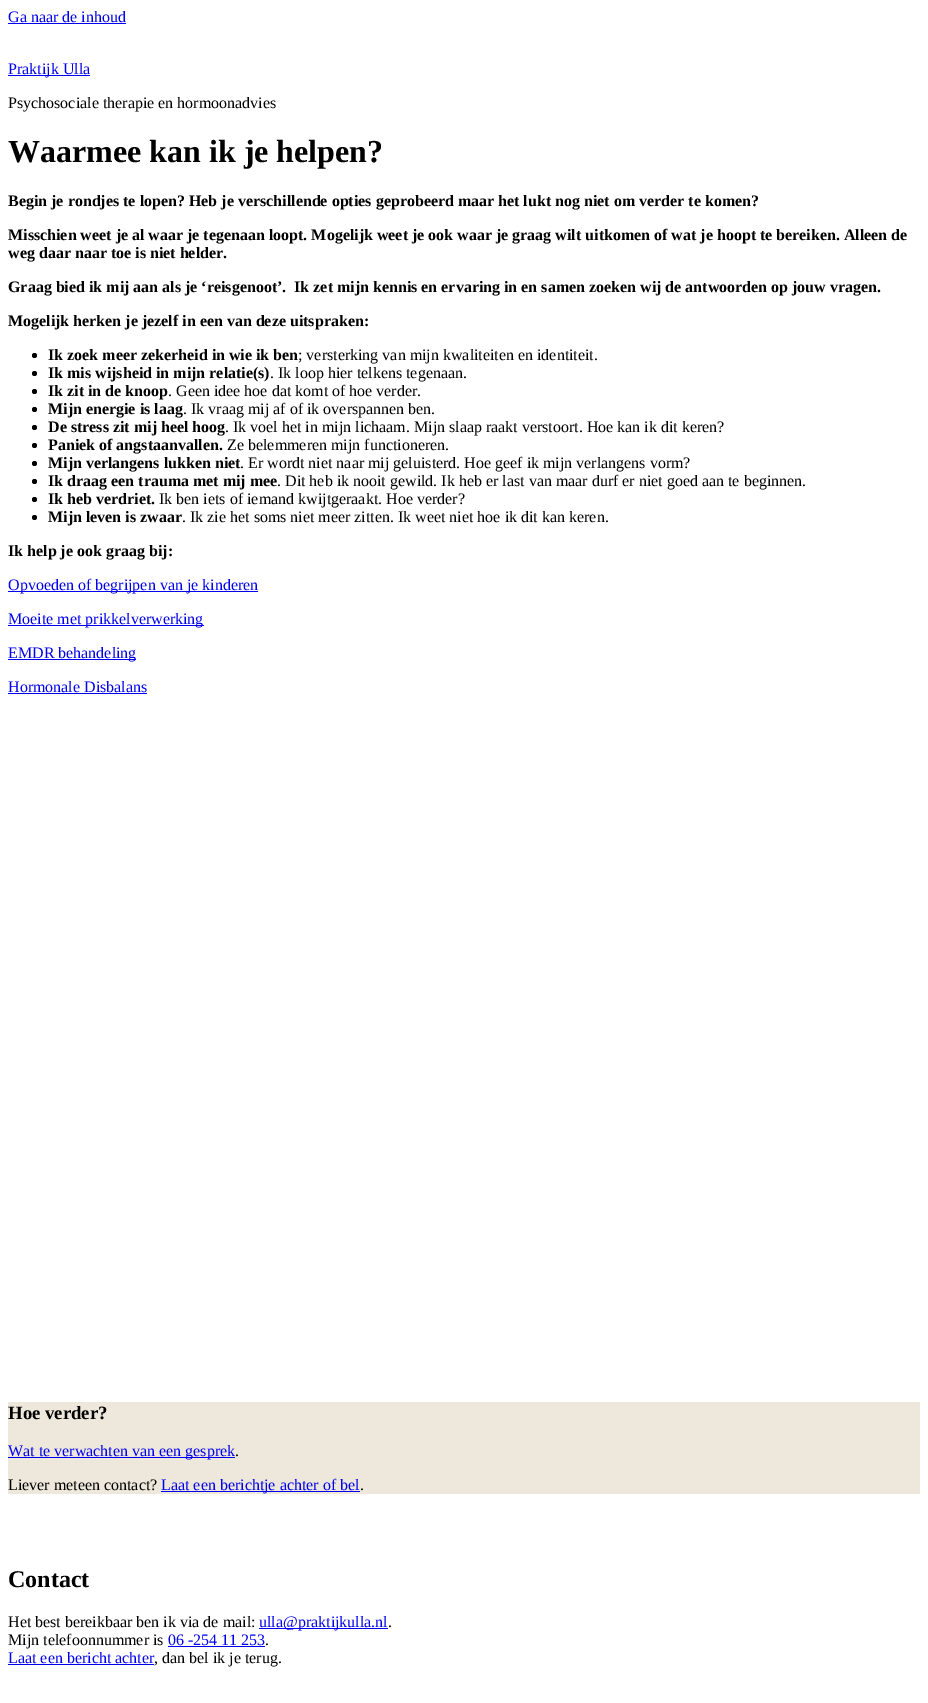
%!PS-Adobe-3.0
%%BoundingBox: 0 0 928 1703
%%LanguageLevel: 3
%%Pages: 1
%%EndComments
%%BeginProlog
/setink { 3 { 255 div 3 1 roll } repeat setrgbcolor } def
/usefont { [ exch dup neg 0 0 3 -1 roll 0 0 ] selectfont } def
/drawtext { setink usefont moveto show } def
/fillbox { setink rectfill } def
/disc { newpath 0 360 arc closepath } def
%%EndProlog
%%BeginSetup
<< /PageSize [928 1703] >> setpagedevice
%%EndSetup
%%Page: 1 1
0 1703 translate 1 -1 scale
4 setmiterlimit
0 0 928 1703 255 255 255 fillbox
(Ga naar de inhoud) 8 22 /LiberationSerif-Regular 16 0 0 238 drawtext
8 23 118 1 0 0 238 fillbox
8 75 82 1 0 0 238 fillbox
(Praktijk Ulla) 8 74 /LiberationSerif-Regular 16 0 0 238 drawtext
(Psychosociale therapie en hormoonadvies) 8 108 /LiberationSerif-Regular 16 0 0 0 drawtext
(Waarmee kan ik je helpen?) 8 162 /LiberationSerif-Bold 32 0 0 0 drawtext
(Begin je rondjes te lopen? Heb je verschillende opties geprobeerd maar het lukt nog niet om verder te komen?) 8 206 /LiberationSerif-Bold 16 0 0 0 drawtext
(Misschien weet je al waar je tegenaan loopt. Mogelijk weet je ook waar je graag wilt uitkomen of wat je hoopt te bereiken. Alleen de) 8 240 /LiberationSerif-Bold 16 0 0 0 drawtext
(weg daar naar toe is niet helder.) 8 258 /LiberationSerif-Bold 16 0 0 0 drawtext
(Graag bied ik mij aan als je ‘reisgenoot’.  Ik zet mijn kennis en ervaring in en samen zoeken wij de antwoorden op jouw vragen.) 8 292 /LiberationSerif-Bold 16 0 0 0 drawtext
(Mogelijk herken je jezelf in een van deze uitspraken:) 8 326 /LiberationSerif-Bold 16 0 0 0 drawtext
34.5 355.5 2.5 disc fill
(Ik zoek meer zekerheid in wie ik ben) 48 360 /LiberationSerif-Bold 16 0 0 0 drawtext
(; versterking van mijn kwaliteiten en identiteit.) 298 360 /LiberationSerif-Regular 16 0 0 0 drawtext
34.5 373.5 2.5 disc fill
(Ik mis wijsheid in mijn relatie\(s\)) 48 378 /LiberationSerif-Bold 16 0 0 0 drawtext
(. Ik loop hier telkens tegenaan.) 270 378 /LiberationSerif-Regular 16 0 0 0 drawtext
34.5 391.5 2.5 disc fill
(Ik zit in de knoop) 48 396 /LiberationSerif-Bold 16 0 0 0 drawtext
(. Geen idee hoe dat komt of hoe verder.) 168 396 /LiberationSerif-Regular 16 0 0 0 drawtext
34.5 409.5 2.5 disc fill
(Mijn energie is laag) 48 414 /LiberationSerif-Bold 16 0 0 0 drawtext
(. Ik vraag mij af of ik overspannen ben.) 183 414 /LiberationSerif-Regular 16 0 0 0 drawtext
34.5 427.5 2.5 disc fill
(De stress zit mij heel hoog) 48 432 /LiberationSerif-Bold 16 0 0 0 drawtext
(. Ik voel het in mijn lichaam. Mijn slaap raakt verstoort. Hoe kan ik dit keren?) 225 432 /LiberationSerif-Regular 16 0 0 0 drawtext
34.5 445.5 2.5 disc fill
(Paniek of angstaanvallen.) 48 450 /LiberationSerif-Bold 16 0 0 0 drawtext
(Ze belemmeren mijn functioneren.) 227 450 /LiberationSerif-Regular 16 0 0 0 drawtext
34.5 463.5 2.5 disc fill
(Mijn verlangens lukken niet) 48 468 /LiberationSerif-Bold 16 0 0 0 drawtext
(. Er wordt niet naar mij geluisterd. Hoe geef ik mijn verlangens vorm?) 240 468 /LiberationSerif-Regular 16 0 0 0 drawtext
34.5 481.5 2.5 disc fill
(Ik draag een trauma met mij mee) 48 486 /LiberationSerif-Bold 16 0 0 0 drawtext
(. Dit heb ik nooit gewild. Ik heb er last van maar durf er niet goed aan te beginnen.) 277 486 /LiberationSerif-Regular 16 0 0 0 drawtext
34.5 499.5 2.5 disc fill
(Ik heb verdriet.) 48 504 /LiberationSerif-Bold 16 0 0 0 drawtext
(Ik ben iets of iemand kwijtgeraakt. Hoe verder?) 159 504 /LiberationSerif-Regular 16 0 0 0 drawtext
34.5 517.5 2.5 disc fill
(Mijn leven is zwaar) 48 522 /LiberationSerif-Bold 16 0 0 0 drawtext
(. Ik zie het soms niet meer zitten. Ik weet niet hoe ik dit kan keren.) 182 522 /LiberationSerif-Regular 16 0 0 0 drawtext
(Ik help je ook graag bij:) 8 556 /LiberationSerif-Bold 16 0 0 0 drawtext
8 591 250 1 0 0 238 fillbox
(Opvoeden of begrijpen van je kinderen) 8 590 /LiberationSerif-Regular 16 0 0 238 drawtext
8 625 196 1 0 0 238 fillbox
(Moeite met prikkelverwerking) 8 624 /LiberationSerif-Regular 16 0 0 238 drawtext
8 659 128 1 0 0 238 fillbox
(EMDR behandeling) 8 658 /LiberationSerif-Regular 16 0 0 238 drawtext
(Hormonale Disbalans) 8 692 /LiberationSerif-Regular 16 0 0 238 drawtext
8 693 139 1 0 0 238 fillbox
8 1402 912 92 237 232 219 fillbox
(Hoe verder?) 8 1419 /LiberationSerif-Bold 18.75 0 0 0 drawtext
8 1457 227 1 0 0 238 fillbox
(Wat te verwachten van een gesprek) 8 1456 /LiberationSerif-Regular 16 0 0 238 drawtext
(.) 235 1456 /LiberationSerif-Regular 16 0 0 0 drawtext
(Liever meteen contact?) 8 1490 /LiberationSerif-Regular 16 0 0 0 drawtext
161 1491 199 1 0 0 238 fillbox
(Laat een berichtje achter of bel) 161 1490 /LiberationSerif-Regular 16 0 0 238 drawtext
(.) 360 1490 /LiberationSerif-Regular 16 0 0 0 drawtext
(Contact) 8 1587 /LiberationSerif-Bold 24 0 0 0 drawtext
(Het best bereikbaar ben ik via de mail:) 8 1627 /LiberationSerif-Regular 16 0 0 0 drawtext
259 1628 129 1 0 0 238 fillbox
(ulla@praktijkulla.nl) 259 1627 /LiberationSerif-Regular 16 0 0 238 drawtext
(.) 388 1627 /LiberationSerif-Regular 16 0 0 0 drawtext
(Mijn telefoonnummer is) 8 1645 /LiberationSerif-Regular 16 0 0 0 drawtext
(06 -254 11 253) 168 1645 /LiberationSerif-Regular 16 0 0 238 drawtext
168 1646 97 1 0 0 238 fillbox
(.) 265 1645 /LiberationSerif-Regular 16 0 0 0 drawtext
(Laat een bericht achter) 8 1663 /LiberationSerif-Regular 16 0 0 238 drawtext
8 1664 146 1 0 0 238 fillbox
(, dan bel ik je terug.) 154 1663 /LiberationSerif-Regular 16 0 0 0 drawtext
showpage
%%EOF
